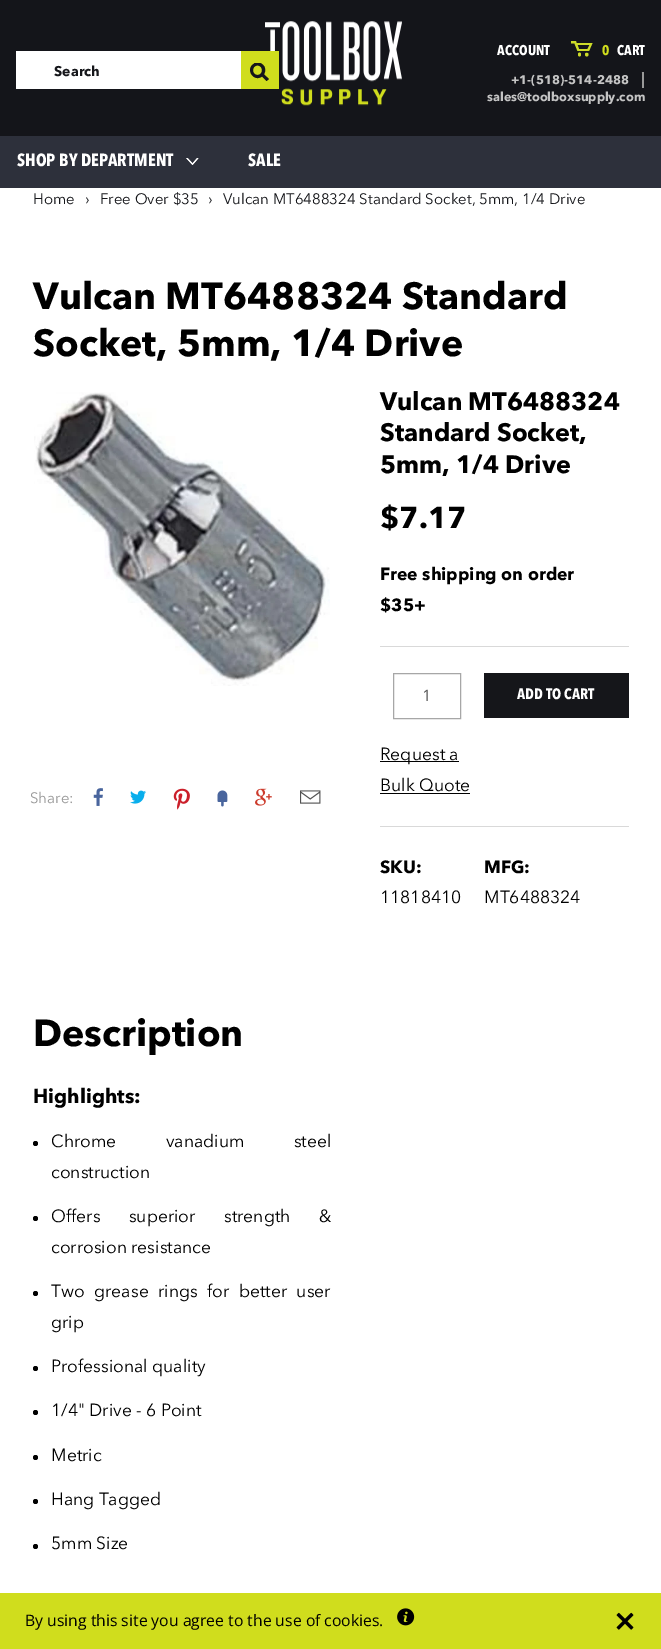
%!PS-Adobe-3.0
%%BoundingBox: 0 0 661 1649
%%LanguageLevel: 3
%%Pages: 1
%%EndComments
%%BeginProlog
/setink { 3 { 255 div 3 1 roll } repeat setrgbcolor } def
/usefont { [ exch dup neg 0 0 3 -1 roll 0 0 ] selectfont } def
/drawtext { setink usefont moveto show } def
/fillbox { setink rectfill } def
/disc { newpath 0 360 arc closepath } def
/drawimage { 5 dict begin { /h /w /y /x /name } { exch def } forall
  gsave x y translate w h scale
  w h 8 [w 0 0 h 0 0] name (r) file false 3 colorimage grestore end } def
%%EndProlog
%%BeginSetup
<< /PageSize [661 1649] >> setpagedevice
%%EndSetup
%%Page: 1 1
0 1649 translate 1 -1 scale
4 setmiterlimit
0 0 661 1649 255 255 255 fillbox
0 0 661 136 20 21 26 fillbox
16 51 225 38 255 255 255 fillbox
(Search) 54 76 /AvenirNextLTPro-Regular 14 21 22 26 drawtext
(assets/img1.rgb) 265 21 137 85 drawimage
241 51 38 38 208 221 29 fillbox
gsave
250 63 19 18 rectclip
21 22 27 setink
269 79 moveto 266.5 81 lineto 262 76.5 lineto 254 82.5 245 69.5 253.5 64 curveto 255 62.5 257 62 259 62.5 curveto 262 63.5 264.5 65.5 265 68.5 curveto 265.5 70.5 265 72.5 264 74.5 curveto closepath 257.5 75 moveto 263.5 75 263.5 65.5 257.5 65.5 curveto 251.5 65.5 251.5 75 257.5 75 curveto closepath eofill
grestore
(ACCOUNT) 497 55 /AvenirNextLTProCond-Regular 14 255 255 255 drawtext
205 220 41 setink
571 41 moveto 576 41 lineto 576.5 43 lineto 592.5 43 lineto 589 51 lineto 577.5 51 lineto 574.5 43.5 lineto 571 43.5 lineto closepath 577.5 45 moveto 579 49 lineto 587.5 49 lineto 589.5 45 lineto closepath eofill
(0) 602 55 /AvenirNextLTProCond-Regular 14 208 221 29 drawtext
(CART) 617 55 /AvenirNextLTProCond-Regular 14 255 255 255 drawtext
205 220 41 setink
578 54.5 moveto 578 57 581 57 581 54.5 curveto 581 52 578 52 578 54.5 curveto closepath 585 54.5 moveto 585 57 588.5 57 588.5 54.5 curveto 588.5 52.5 585 52 585 54.5 curveto closepath fill
(+1-\(518\)-514-2488) 511 84 /AvenirNextLTPro-Regular 12.5 196 196 196 drawtext
(|) 641 84 /AvenirNextLTPro-Regular 16 153 153 153 drawtext
(sales@toolboxsupply.com) 487 101 /AvenirNextLTPro-Regular 12.5 196 196 196 drawtext
0 136 661 52 45 48 59 fillbox
(SHOP BY DEPARTMENT) 17 166 /AvenirNextLTProCond-Regular 17.5 255 255 255 drawtext
(assets/img2.rgb) 186 158 13 7 drawimage
(SALE) 248 166 /AvenirNextLTProCond-Regular 17.5 255 255 255 drawtext
(Home) 33 204 /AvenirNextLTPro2-Regular 15 21 22 26 drawtext
(›) 85 204 /AvenirNextLTPro2-Regular 15 21 22 26 drawtext
(Free Over $35) 100 204 /AvenirNextLTPro2-Regular 15 21 22 26 drawtext
(›) 208 204 /AvenirNextLTPro2-Regular 15 21 22 26 drawtext
(Vulcan MT6488324 Standard Socket, 5mm, 1/4 Drive) 223 204 /AvenirNextLTPro2-Regular 15 21 22 26 drawtext
(Vulcan MT6488324 Standard) 33 309 /AvenirNextLTPro-Regular 37.5 0 0 0 drawtext
(Socket, 5mm, 1/4 Drive) 33 356 /AvenirNextLTPro-Regular 37.5 0 0 0 drawtext
(assets/img3.rgb) 34 392 296 294 drawimage
(Share:) 30 803 /AvenirNextLTPro2-Regular 15 153 153 153 drawtext
(assets/img4.rgb) 93 788 10 18 drawimage
(assets/img5.rgb) 130 790 16 14 drawimage
(assets/img6.rgb) 173 788 17 22 drawimage
(assets/img7.rgb) 217 790 11 17 drawimage
(assets/img8.rgb) 255 788 17 18 drawimage
(assets/img9.rgb) 300 790 21 14 drawimage
(Vulcan MT6488324) 380 410 /AvenirNextLTPro-Regular 25 0 0 0 drawtext
(Standard Socket,) 380 441 /AvenirNextLTPro-Regular 25 0 0 0 drawtext
(5mm, 1/4 Drive) 380 473 /AvenirNextLTPro-Regular 25 0 0 0 drawtext
($7.17) 380 528 /AvenirNextLTPro-Regular 30 0 0 0 drawtext
(Free shipping on order) 380 580 /AvenirNextLTPro-Regular 17.5 0 0 0 drawtext
($35+) 380 611 /AvenirNextLTPro-Regular 17.5 0 0 0 drawtext
380 646 249 1 217 217 217 fillbox
167 167 167 setink
393.5 673.5 67 45 rectstroke
(1) 422 701 /AvenirNextLTPro2-Regular 16 85 85 85 drawtext
380 761 79 1 0 0 0 fillbox
(Request a) 380 760 /AvenirNextLTPro2-Regular 17.5 0 0 0 drawtext
(Bulk Quote) 380 791 /AvenirNextLTPro2-Regular 17.5 0 0 0 drawtext
380 793 90 1 0 0 0 fillbox
484 673 145 45 21 22 26 fillbox
(ADD TO CART) 517 699 /AvenirNextLTProCond-Regular 15 255 255 255 drawtext
380 826 249 1 217 217 217 fillbox
(SKU:) 380 873 /AvenirNextLTPro-Regular 17.5 0 0 0 drawtext
(11818410) 380 903 /AvenirNextLTPro2-Regular 17.5 0 0 0 drawtext
(MFG:) 484 873 /AvenirNextLTPro-Regular 17.5 0 0 0 drawtext
(MT6488324) 484 903 /AvenirNextLTPro2-Regular 17.5 0 0 0 drawtext
(Description) 33 1046 /AvenirNextLTPro-Regular 37.5 0 0 0 drawtext
(Highlights:) 33 1103 /AvenirNextLTPro-Regular 20 0 0 0 drawtext
35.5 1143.5 2.5 disc fill
/AvenirNextLTPro2-Regular 17.5 usefont
51 1147 moveto 45 0 32 (Chrome vanadium steel) widthshow
(construction) 51 1178 /AvenirNextLTPro2-Regular 17.5 0 0 0 drawtext
35.5 1218.5 2.5 disc fill
51 1222 moveto 24 0 32 (Offers superior strength &) widthshow
(corrosion resistance) 51 1253 /AvenirNextLTPro2-Regular 17.5 0 0 0 drawtext
35.5 1293.5 2.5 disc fill
51 1297 moveto 5 0 32 (Two grease rings for better user) widthshow
(grip) 51 1328 /AvenirNextLTPro2-Regular 17.5 0 0 0 drawtext
35.5 1368.5 2.5 disc fill
(Professional quality) 51 1372 /AvenirNextLTPro2-Regular 17.5 0 0 0 drawtext
35.5 1412.5 2.5 disc fill
(1/4" Drive - 6 Point) 51 1416 /AvenirNextLTPro2-Regular 17.5 0 0 0 drawtext
35.5 1457.5 2.5 disc fill
(Metric) 51 1461 /AvenirNextLTPro2-Regular 17.5 0 0 0 drawtext
35.5 1501.5 2.5 disc fill
(Hang Tagged) 51 1505 /AvenirNextLTPro2-Regular 17.5 0 0 0 drawtext
35.5 1546.5 2.5 disc fill
(5mm Size) 51 1549 /AvenirNextLTPro2-Regular 17.5 0 0 0 drawtext
0 1593 661 56 208 221 29 fillbox
(By using this site you agree to the use of cookies.) 25 1626 /OpenSans-Regular 15.75 0 0 0 drawtext
(assets/img10.rgb) 397 1608 18 18 drawimage
(assets/img11.rgb) 616 1612 18 18 drawimage
showpage
%%EOF
